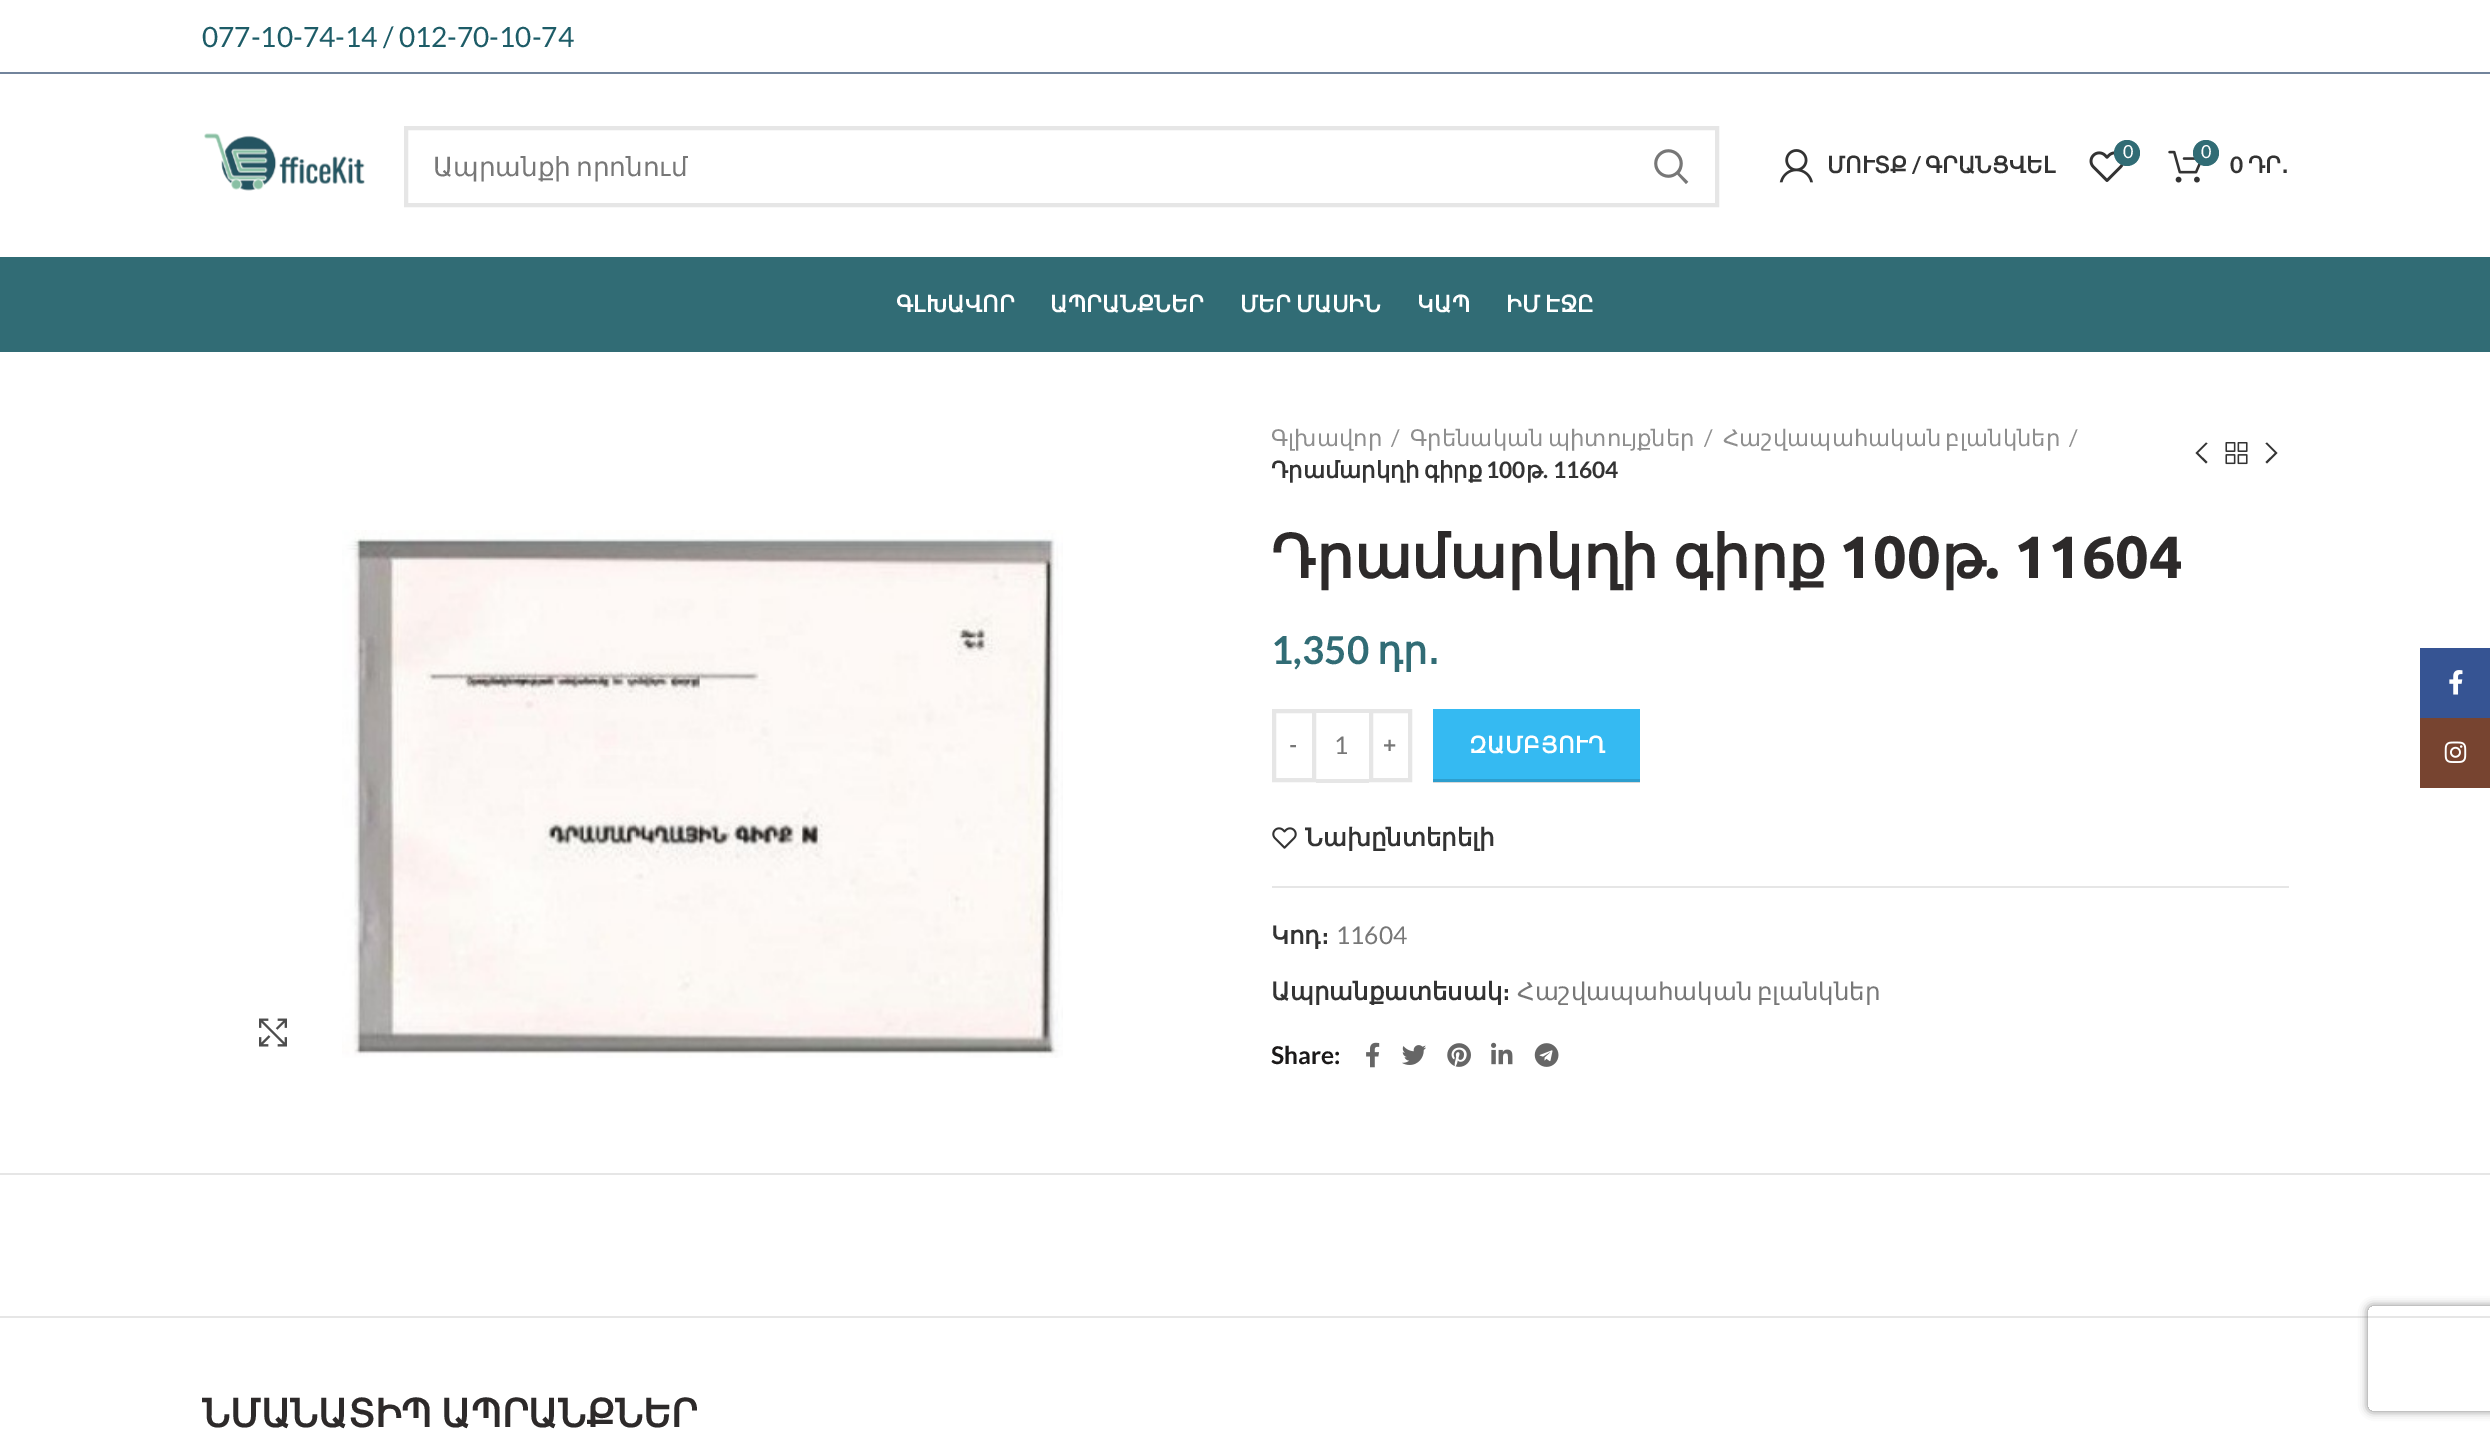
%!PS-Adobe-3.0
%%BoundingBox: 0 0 2490 1434
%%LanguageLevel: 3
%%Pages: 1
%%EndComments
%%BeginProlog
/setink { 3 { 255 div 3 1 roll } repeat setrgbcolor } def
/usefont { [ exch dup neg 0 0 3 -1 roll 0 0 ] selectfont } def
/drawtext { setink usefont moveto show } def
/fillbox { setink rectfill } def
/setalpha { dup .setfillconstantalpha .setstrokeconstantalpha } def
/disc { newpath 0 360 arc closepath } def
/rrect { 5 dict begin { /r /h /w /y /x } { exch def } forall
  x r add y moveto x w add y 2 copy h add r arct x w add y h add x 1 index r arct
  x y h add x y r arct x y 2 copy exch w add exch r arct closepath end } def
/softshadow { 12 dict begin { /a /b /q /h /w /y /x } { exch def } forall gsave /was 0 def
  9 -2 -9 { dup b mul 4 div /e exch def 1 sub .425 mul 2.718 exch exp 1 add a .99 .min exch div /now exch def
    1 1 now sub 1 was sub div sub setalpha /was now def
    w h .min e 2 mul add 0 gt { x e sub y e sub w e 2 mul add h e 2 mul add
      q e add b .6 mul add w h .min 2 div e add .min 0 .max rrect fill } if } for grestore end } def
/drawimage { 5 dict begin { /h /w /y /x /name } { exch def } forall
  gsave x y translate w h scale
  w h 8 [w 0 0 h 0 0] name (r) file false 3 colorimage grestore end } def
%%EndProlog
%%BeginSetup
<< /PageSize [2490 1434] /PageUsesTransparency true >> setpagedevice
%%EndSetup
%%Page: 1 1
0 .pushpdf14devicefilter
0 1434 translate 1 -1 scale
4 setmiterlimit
0 0 2490 1434 255 255 255 fillbox
1433 782 207 1 217 217 217 fillbox
0 72 2490 2 114 132 156 fillbox
(077-10-74-14 / 012-70-10-74) 202 47 /Lato-Regular 28 29 92 103 drawtext
(assets/img1.rgb) 204 133 161 58 drawimage
230 230 230 setink
4 setlinewidth
406 128 1311 77 rectstroke
/DejaVuSans-Regular 26.25 usefont
119 119 119 setink
433 176 moveto -3 0 32 (Ապրանքի որոնում) widthshow
(assets/img2.rgb) 1654 149 35 35 drawimage
(assets/img3.rgb) 1779 149 34 34 drawimage
(ՄՈՒՏՔ) 1827 173 /DejaVuSans-Bold 22.75 51 51 51 drawtext
(/) 1912 173 /Lato-Bold 22.75 51 51 51 drawtext
(ԳՐԱՆՑՎԵԼ) 1925 173 /DejaVuSans-Bold 22.75 51 51 51 drawtext
(assets/img4.rgb) 2089 151 35 31 drawimage
49 108 117 setink
2127 153 13 disc fill
(0) 2123 158 /Lato-Regular 18 255 255 255 drawtext
(assets/img5.rgb) 2168 150 33 33 drawimage
49 108 117 setink
2206 153 13 disc fill
(0) 2201 158 /Lato-Regular 18 255 255 255 drawtext
(0) 2230 173 /Lato-Bold 22.75 51 51 51 drawtext
(ԴՐ․) 2248 173 /DejaVuSans-Bold 22.75 51 51 51 drawtext
0 257 2490 95 49 108 117 fillbox
255 255 255 setink
896 312 moveto 0.25 0 (ԳԼԽԱՎՈՐ) ashow
1050 312 moveto 0.25 0 (ԱՊՐԱՆՔՆԵՐ) ashow
1240 312 moveto -3 0 32 0.25 0 (ՄԵՐ ՄԱՍԻՆ) awidthshow
1417 312 moveto 0.25 0 (ԿԱՊ) ashow
1506 312 moveto -3 0 32 0.25 0 (ԻՄ ԷՋԸ) awidthshow
(assets/img6.rgb) 259 1018 28 29 drawimage
(assets/img7.rgb) 342 530 721 528 drawimage
(Գլխավոր) 1271 446 /DejaVuSans-Regular 22.75 142 142 142 drawtext
(/) 1391 446 /Lato-Regular 22.75 142 142 142 drawtext
/DejaVuSans-Regular 22.75 usefont
1410 446 moveto -3 0 32 (Գրենական պիտույքներ) widthshow
(/) 1704 446 /Lato-Regular 22.75 142 142 142 drawtext
/DejaVuSans-Regular 22.75 usefont
1723 446 moveto -3 0 32 (Հաշվապահական բլանկներ) widthshow
(/) 2069 446 /Lato-Regular 22.75 142 142 142 drawtext
(Դրամարկղի) 1271 478 /DejaVuSans-Bold 22.75 51 51 51 drawtext
(գիրք) 1424 478 /DejaVuSans-Bold 22.75 51 51 51 drawtext
(100) 1486 478 /Lato-Bold 22.75 51 51 51 drawtext
(թ) 1526 478 /DejaVuSans-Bold 22.75 51 51 51 drawtext
(. 11604) 1543 478 /Lato-Bold 22.75 51 51 51 drawtext
2207.5 443.5 moveto 2198 453 lineto 2207.5 462 lineto 2206 463.5 lineto 2195.5 453 lineto 2206 442.5 lineto closepath fill
(assets/img8.rgb) 2225 442 23 23 drawimage
2267 442.5 moveto 2277.5 453 lineto 2267 463.5 lineto 2265.5 462 lineto 2275 453 lineto 2265.5 443.5 lineto closepath fill
(Դրամարկղի) 1271 578 /DejaVuSans-Bold 59.5 45 42 42 drawtext
(գիրք) 1673 578 /DejaVuSans-Bold 59.5 45 42 42 drawtext
(100) 1839 578 /Ubuntu-Bold 59.5 45 42 42 drawtext
(թ) 1941 578 /DejaVuSans-Bold 59.5 45 42 42 drawtext
(. 11604) 1985 578 /Ubuntu-Bold 59.5 45 42 42 drawtext
(1,350) 1271 664 /Lato-Bold 38.5 49 108 117 drawtext
(դր․) 1377 664 /DejaVuSans-Bold 38.5 49 108 117 drawtext
230 230 230 setink
1274 711 40 69 rectstroke
/Lato-Bold 22.75 usefont
119 119 119 setink
1289 753 moveto 0.5 0 (-) ashow
1316 709 53 4 230 230 230 fillbox
1316 779 53 4 230 230 230 fillbox
(1) 1334 754 /Lato-Regular 24.5 119 119 119 drawtext
230 230 230 setink
1371 711 39 69 rectstroke
/Lato-Bold 22.75 usefont
119 119 119 setink
1383 753 moveto 0.5 0 (+) ashow
1433 709 207 70 53 186 242 fillbox
1433 779 207 3 45 158 206 fillbox
/DejaVuSans-Bold 22.75 usefont
255 255 255 setink
1469 753 moveto 0.5 0 (ԶԱՄԲՅՈՒՂ) ashow
53 186 242 setink
1.8 setlinewidth
1526 756 moveto 1520.5 750.5 1520.5 740.5 1526 735 curveto stroke
(assets/img9.rgb) 1272 827 25 22 drawimage
(Նախընտերելի) 1305 846 /DejaVuSans-Bold 24.5 51 51 51 drawtext
1272 886 1017 2 230 230 230 fillbox
(Կոդ։) 1271 944 /DejaVuSans-Bold 24.5 51 51 51 drawtext
(11604) 1336 944 /Lato-Regular 24.5 119 119 119 drawtext
(Ապրանքատեսակ։) 1271 1000 /DejaVuSans-Bold 24.5 51 51 51 drawtext
/DejaVuSans-Regular 24.5 usefont
119 119 119 setink
1517 1000 moveto -3 0 32 (Հաշվապահական բլանկներ) widthshow
(Share:) 1271 1064 /Lato-Bold 24.5 27 25 25 drawtext
(assets/img10.rgb) 1366 1042 14 26 drawimage
(assets/img11.rgb) 1402 1045 24 20 drawimage
(assets/img12.rgb) 1447 1043 24 24 drawimage
(assets/img13.rgb) 1491 1042 22 23 drawimage
(assets/img14.rgb) 1534 1043 25 24 drawimage
0 1173 2490 2 230 230 230 fillbox
0 1316 2490 2 230 230 230 fillbox
/DejaVuSans-Bold 38.5 usefont
45 42 42 setink
202 1427 moveto -3 0 32 (ՆՄԱՆԱՏԻՊ ԱՊՐԱՆՔՆԵՐ) widthshow
2420 648 70 70 54 84 147 fillbox
(assets/img15.rgb) 2449 670 14 25 drawimage
2420 718 70 70 119 68 48 fillbox
(assets/img16.rgb) 2444 741 23 22 drawimage
gsave
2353 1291 moveto 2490 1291 lineto 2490 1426 lineto 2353 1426 lineto closepath 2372 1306 moveto 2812 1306 lineto 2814 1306 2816 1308 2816 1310 curveto 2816 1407 lineto 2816 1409 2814 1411 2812 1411 curveto 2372 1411 lineto 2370 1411 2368 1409 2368 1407 curveto 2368 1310 lineto 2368 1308 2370 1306 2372 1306 curveto closepath eoclip newpath
128 128 128 setink
2368 1306 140 105 4 4.5 1 softshadow
grestore
.poppdf14devicefilter showpage
%%EOF
